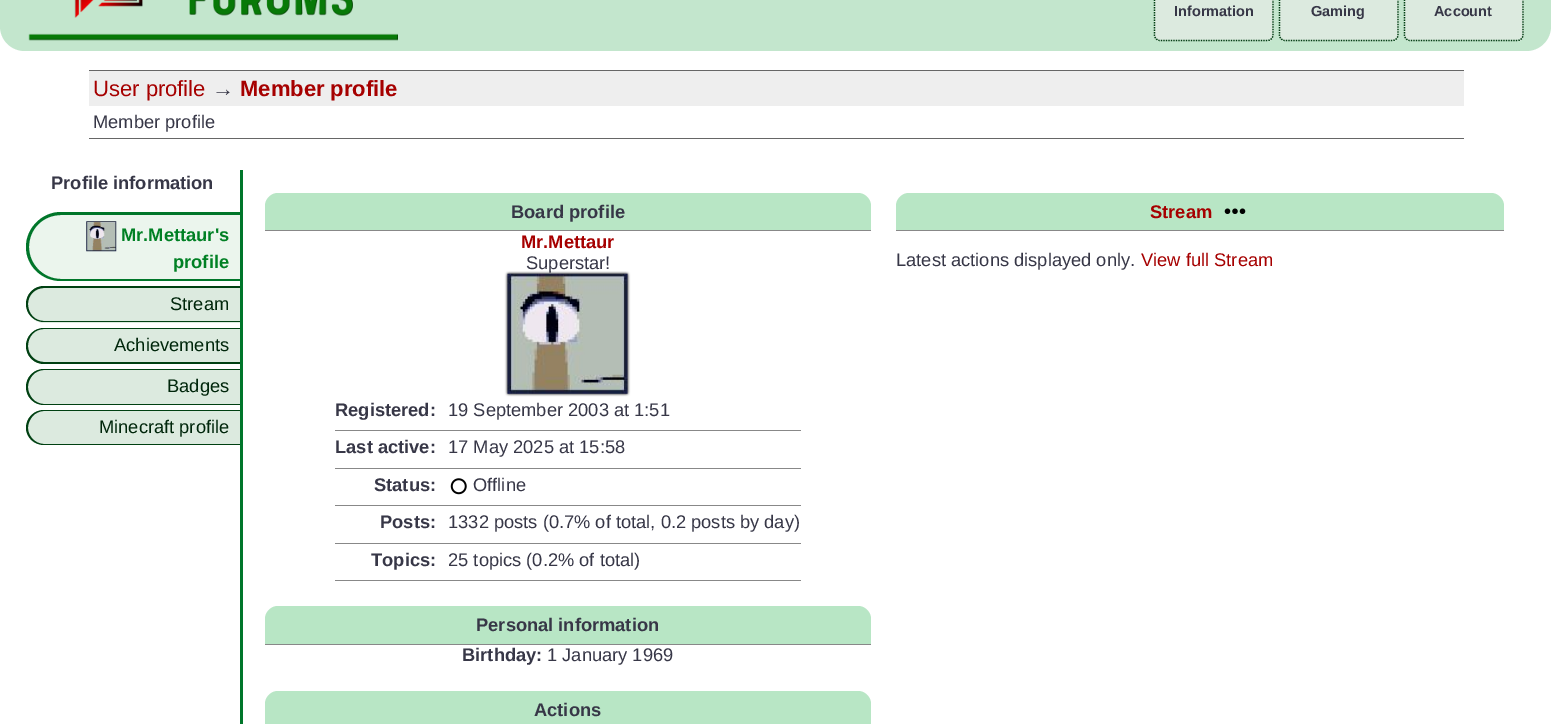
%!PS-Adobe-3.0
%%BoundingBox: 0 0 1551 724
%%LanguageLevel: 3
%%Pages: 1
%%EndComments
%%BeginProlog
/setink { 3 { 255 div 3 1 roll } repeat setrgbcolor } def
/usefont { [ exch dup neg 0 0 3 -1 roll 0 0 ] selectfont } def
/drawtext { setink usefont moveto show } def
/fillbox { setink rectfill } def
/rrect { 5 dict begin { /r /h /w /y /x } { exch def } forall
  x r add y moveto x w add y 2 copy h add r arct x w add y h add x 1 index r arct
  x y h add x y r arct x y 2 copy exch w add exch r arct closepath end } def
/drawimage { 5 dict begin { /h /w /y /x /name } { exch def } forall
  gsave x y translate w h scale
  w h 8 [w 0 0 h 0 0] name (r) file false 3 colorimage grestore end } def
%%EndProlog
%%BeginSetup
<< /PageSize [1551 724] >> setpagedevice
%%EndSetup
%%Page: 1 1
0 724 translate 1 -1 scale
4 setmiterlimit
0 0 1551 724 255 255 255 fillbox
195 230 205 setink
0 -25 moveto 1551 -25 lineto 1551 26 lineto 1551 40 1540 51 1526 51 curveto 25 51 lineto 11 51 0 40 0 26 curveto closepath fill
(assets/img1.rgb) 28 0 370 41 drawimage
220 234 223 setink
1154 -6 120 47 6 rrect fill
0 64 18 setink
1.2 setlinewidth
[1.25 1.25] 0 setdash
1160 -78 moveto 1267.5 -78 lineto 1270.5 -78 1273 -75.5 1273 -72.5 curveto 1273 35 lineto 1273 38 1270.5 40.5 1267.5 40.5 curveto 1160 40.5 lineto 1157 40.5 1154.5 38 1154.5 35 curveto 1154.5 -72.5 lineto 1154.5 -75.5 1157 -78 1160 -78 curveto closepath stroke
(Information) 1174 16 /LiberationSans-Bold 14.5 55 55 71 drawtext
220 234 223 setink
1279 -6 120 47 6 rrect fill
0 64 18 setink
1285 -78 moveto 1392.5 -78 lineto 1395.5 -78 1398 -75.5 1398 -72.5 curveto 1398 35 lineto 1398 38 1395.5 40.5 1392.5 40.5 curveto 1285 40.5 lineto 1282 40.5 1279.5 38 1279.5 35 curveto 1279.5 -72.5 lineto 1279.5 -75.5 1282 -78 1285 -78 curveto closepath stroke
(Gaming) 1311 16 /LiberationSans-Bold 14.5 55 55 71 drawtext
220 234 223 setink
1404 -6 120 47 6 rrect fill
0 64 18 setink
1410 -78 moveto 1517.5 -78 lineto 1520.5 -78 1523 -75.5 1523 -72.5 curveto 1523 35 lineto 1523 38 1520.5 40.5 1517.5 40.5 curveto 1410 40.5 lineto 1407 40.5 1404.5 38 1404.5 35 curveto 1404.5 -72.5 lineto 1404.5 -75.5 1407 -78 1410 -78 curveto closepath stroke
(Account) 1434 16 /LiberationSans-Bold 14.5 55 55 71 drawtext
89 70 1375 1 102 102 102 fillbox
89 138 1375 1 102 102 102 fillbox
89 71 1375 35 238 238 238 fillbox
(User profile) 93 96 /LiberationSans-Regular 22 166 0 0 drawtext
(→) 212 96 /LiberationSans-Regular 22 55 55 71 drawtext
(Member profile) 240 96 /LiberationSans-Bold 22 166 0 0 drawtext
(Member profile) 93 128 /LiberationSans-Regular 18.3 55 55 71 drawtext
(Profile information) 51 189 /LiberationSans-Bold 18.3 55 55 71 drawtext
235 245 237 setink
60 213 moveto 240 213 lineto 240 281 lineto 60 281 lineto 41 281 26 266 26 247 curveto 26 228 41 213 60 213 curveto closepath fill
0 118 42 setink
61 212 moveto 240 212 lineto 240 281 lineto 61 281 lineto 42 281 26 266 26 247 curveto 26 228 42 212 61 212 curveto closepath 61 215 moveto 240 215 lineto 240 279 lineto 61 279 lineto 43 279 29 264 29 247 curveto 29 229 43 215 61 215 curveto closepath eofill
(assets/img2.rgb) 86 221 31 31 drawimage
(Mr.Mettaur's) 121 241 /LiberationSans-Bold 18.3 0 128 36 drawtext
(profile) 173 268 /LiberationSans-Bold 18.3 0 128 36 drawtext
220 234 223 setink
44.5 286 moveto 240 286 lineto 240 323 lineto 44.5 323 lineto 34.5 323 26 314.5 26 304.5 curveto 26 294.5 34.5 286 44.5 286 curveto closepath fill
0 64 18 setink
44 286 moveto 240 286 lineto 240 322 lineto 44 322 lineto 34 322 26 314 26 304 curveto 26 294 34 286 44 286 curveto closepath 44 288 moveto 240 288 lineto 240 321 lineto 44 321 lineto 35 321 28 314 28 304 curveto 28 295 35 288 44 288 curveto closepath eofill
(Stream) 170 310 /LiberationSans-Regular 18.3 0 38 11 drawtext
220 234 223 setink
44 328 moveto 240 328 lineto 240 364 lineto 44 364 lineto 34 364 26 356 26 346 curveto 26 336 34 328 44 328 curveto closepath fill
0 64 18 setink
44 328 moveto 240 328 lineto 240 364 lineto 44 364 lineto 34 364 26 356 26 346 curveto 26 336 34 328 44 328 curveto closepath 44 329 moveto 240 329 lineto 240 362 lineto 44 362 lineto 35 362 28 355 28 346 curveto 28 336 35 329 44 329 curveto closepath eofill
(Achievements) 114 351 /LiberationSans-Regular 18.3 0 38 11 drawtext
220 234 223 setink
44 369 moveto 240 369 lineto 240 405 lineto 44 405 lineto 34 405 26 397 26 387 curveto 26 377 34 369 44 369 curveto closepath fill
0 64 18 setink
44 369 moveto 240 369 lineto 240 405 lineto 44 405 lineto 34 405 26 397 26 387 curveto 26 377 34 369 44 369 curveto closepath 44 370 moveto 240 370 lineto 240 404 lineto 44 404 lineto 35 404 28 396 28 387 curveto 28 378 35 370 44 370 curveto closepath eofill
(Badges) 167 392 /LiberationSans-Regular 18.3 0 38 11 drawtext
220 234 223 setink
43.5 410 moveto 240 410 lineto 240 445 lineto 43.5 445 lineto 34 445 26 437 26 427.5 curveto 26 418 34 410 43.5 410 curveto closepath fill
0 64 18 setink
44 410 moveto 240 410 lineto 240 445 lineto 44 445 lineto 34 445 26 437 26 428 curveto 26 418 34 410 44 410 curveto closepath 44 411 moveto 240 411 lineto 240 444 lineto 44 444 lineto 35 444 28 436 28 428 curveto 28 419 35 411 44 411 curveto closepath eofill
(Minecraft profile) 99 433 /LiberationSans-Regular 18.3 0 38 11 drawtext
240 170 3 554 0 118 42 fillbox
184 230 197 setink
278 193 moveto 858 193 lineto 865 193 871 199 871 206 curveto 871 231 lineto 265 231 lineto 265 206 lineto 265 199 271 193 278 193 curveto closepath fill
265 230 606 1 136 136 136 fillbox
(Board profile) 511 218 /LiberationSans-Bold 18.3 55 55 71 drawtext
(Mr.Mettaur) 521 248 /LiberationSans-Bold 18.3 166 0 0 drawtext
(Superstar!) 526 269 /LiberationSans-Regular 18.3 55 55 71 drawtext
(assets/img3.rgb) 504 271 127 126 drawimage
335 430 466 1 136 136 136 fillbox
(Registered:) 335 416 /LiberationSans-Bold 18.3 55 55 71 drawtext
(19 September 2003 at 1:51) 448 416 /LiberationSans-Regular 18.3 55 55 71 drawtext
335 468 466 1 136 136 136 fillbox
(Last active:) 335 453 /LiberationSans-Bold 18.3 55 55 71 drawtext
(17 May 2025 at 15:58) 448 453 /LiberationSans-Regular 18.3 55 55 71 drawtext
335 505 466 1 136 136 136 fillbox
(Status:) 374 491 /LiberationSans-Bold 18.3 55 55 71 drawtext
(assets/img4.rgb) 450 478 17 17 drawimage
(Offline) 473 491 /LiberationSans-Regular 18.3 55 55 71 drawtext
335 543 466 1 136 136 136 fillbox
(Posts:) 380 528 /LiberationSans-Bold 18.3 55 55 71 drawtext
(1332 posts \(0.7% of total, 0.2 posts by day\)) 448 528 /LiberationSans-Regular 18.3 55 55 71 drawtext
335 580 466 1 136 136 136 fillbox
(Topics:) 371 566 /LiberationSans-Bold 18.3 55 55 71 drawtext
(25 topics \(0.2% of total\)) 448 566 /LiberationSans-Regular 18.3 55 55 71 drawtext
184 230 197 setink
278 606 moveto 858 606 lineto 865 606 871 612 871 619 curveto 871 645 lineto 265 645 lineto 265 619 lineto 265 612 271 606 278 606 curveto closepath fill
265 644 606 1 136 136 136 fillbox
(Personal information) 476 631 /LiberationSans-Bold 18.3 55 55 71 drawtext
(Birthday:) 462 661 /LiberationSans-Bold 18.3 55 55 71 drawtext
(1 January 1969) 547 661 /LiberationSans-Regular 18.3 55 55 71 drawtext
184 230 197 setink
278 691 moveto 858 691 lineto 865 691 871 697 871 704 curveto 871 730 lineto 265 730 lineto 265 704 lineto 265 697 271 691 278 691 curveto closepath fill
(Actions) 534 716 /LiberationSans-Bold 18.3 55 55 71 drawtext
184 230 197 setink
909 193 moveto 1491 193 lineto 1498 193 1504 199 1504 206 curveto 1504 231 lineto 896 231 lineto 896 206 lineto 896 199 902 193 909 193 curveto closepath fill
896 230 608 1 136 136 136 fillbox
(Stream) 1150 218 /LiberationSans-Bold 18.3 166 0 0 drawtext
(assets/img5.rgb) 1224 208 22 6 drawimage
(Latest actions displayed only.) 896 266 /LiberationSans-Regular 18.3 55 55 71 drawtext
(View full Stream) 1141 266 /LiberationSans-Regular 18.3 166 0 0 drawtext
showpage
%%EOF
